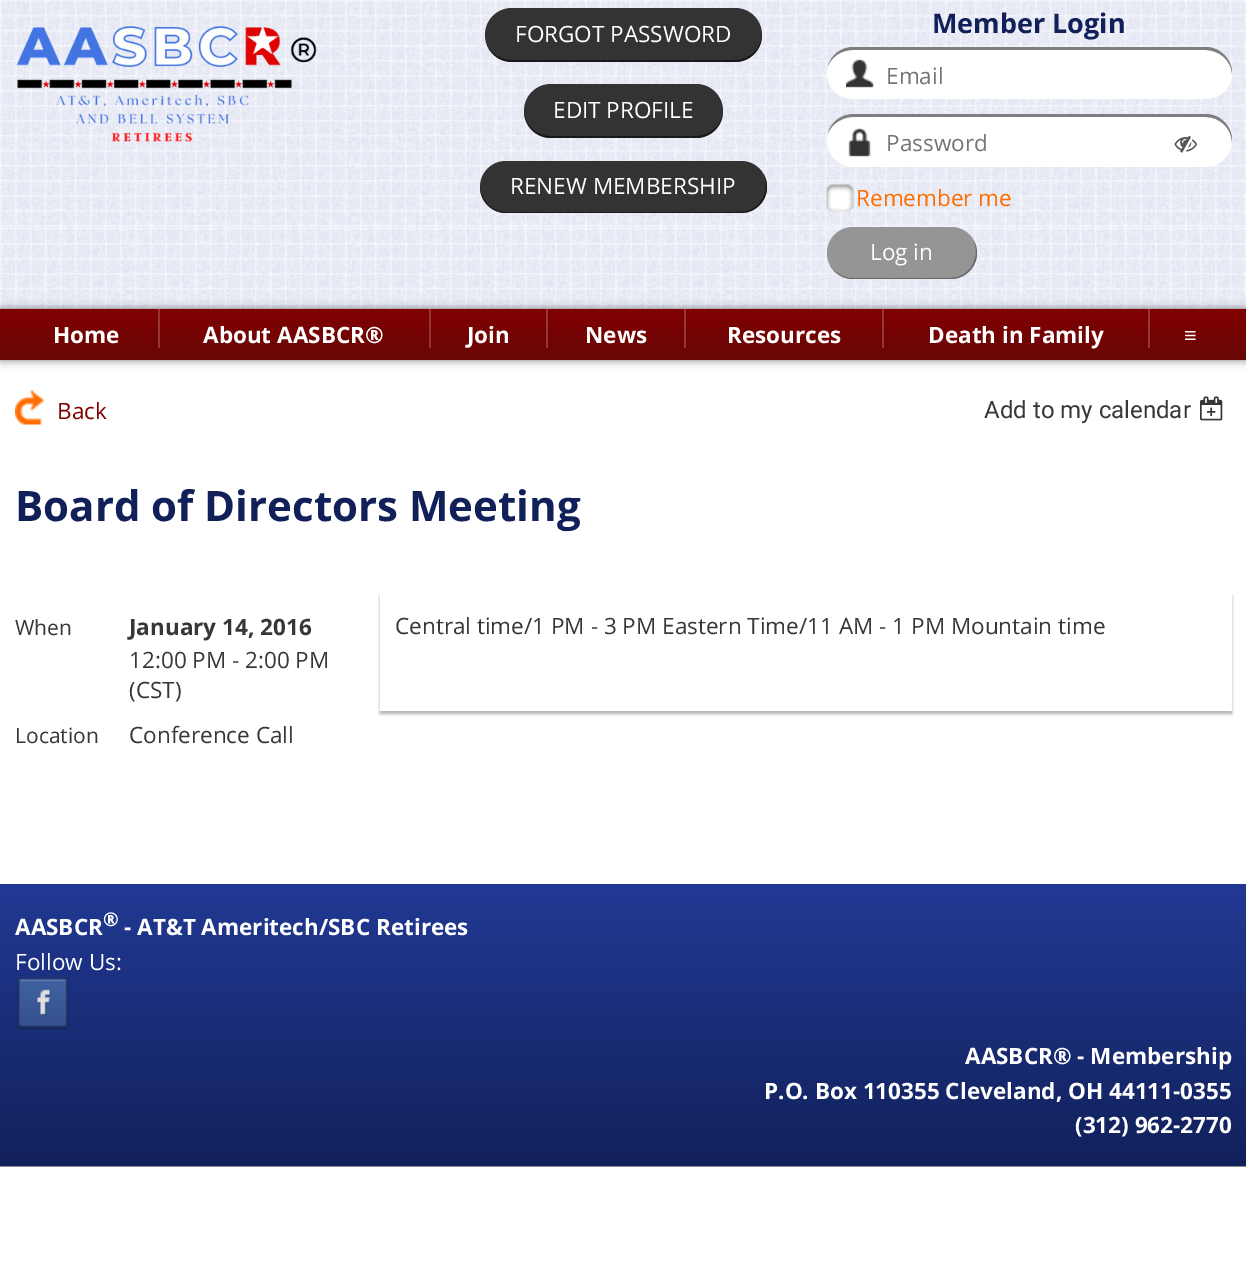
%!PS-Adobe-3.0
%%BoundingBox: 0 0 1246 1288
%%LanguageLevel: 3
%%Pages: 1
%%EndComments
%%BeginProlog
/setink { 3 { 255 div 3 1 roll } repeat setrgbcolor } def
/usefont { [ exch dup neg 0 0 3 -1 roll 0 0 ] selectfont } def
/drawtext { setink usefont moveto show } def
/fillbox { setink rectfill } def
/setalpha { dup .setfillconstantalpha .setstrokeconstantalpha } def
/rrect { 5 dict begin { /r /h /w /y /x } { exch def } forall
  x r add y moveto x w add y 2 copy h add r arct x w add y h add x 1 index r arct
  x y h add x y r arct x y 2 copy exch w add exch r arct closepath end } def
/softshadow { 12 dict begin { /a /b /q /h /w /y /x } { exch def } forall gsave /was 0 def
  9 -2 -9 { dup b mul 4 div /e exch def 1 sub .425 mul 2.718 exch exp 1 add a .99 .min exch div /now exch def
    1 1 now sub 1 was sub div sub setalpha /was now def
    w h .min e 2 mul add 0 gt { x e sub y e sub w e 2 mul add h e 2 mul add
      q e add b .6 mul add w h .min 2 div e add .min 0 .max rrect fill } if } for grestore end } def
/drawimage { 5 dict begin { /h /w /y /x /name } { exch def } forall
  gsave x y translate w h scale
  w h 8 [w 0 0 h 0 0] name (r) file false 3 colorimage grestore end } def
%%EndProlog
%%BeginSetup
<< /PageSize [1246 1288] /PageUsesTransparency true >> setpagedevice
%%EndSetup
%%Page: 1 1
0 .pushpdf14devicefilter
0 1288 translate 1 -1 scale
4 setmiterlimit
0 0 1246 1288 255 255 255 fillbox
(assets/img1.rgb) 0 0 1246 309 drawimage
(assets/img2.rgb) 16 25 301 117 drawimage
51 51 51 setink
485 8 277 54 27 rrect fill
0.5 setalpha
0 0 0 setink
487 45 moveto 491 55 500 62 512 62 curveto 735 62 lineto 750 62 762 50 762 35 curveto 762 34 lineto 761 49 750 60 735 60 curveto 512 60 lineto 501 60 491 54 487 45 curveto closepath fill
1 setalpha
(FORGOT PASSWORD) 515 42 /OpenSans-Regular 22.5 255 255 255 drawtext
51 51 51 setink
524 84 199 54 27 rrect fill
0.5 setalpha
0 0 0 setink
524 110 moveto 524 111 lineto 524 126 536 138 551 138 curveto 696 138 lineto 711 138 723 126 723 111 curveto 723 110 lineto 723 124 711 136 696 136 curveto 550 136 lineto 536 136 524 124 524 110 curveto closepath fill
1 setalpha
(EDIT PROFILE) 553 118 /OpenSans-Regular 22.5 255 255 255 drawtext
51 51 51 setink
480 161 287 52 26 rrect fill
0.5 setalpha
0 0 0 setink
480 186 moveto 480 187 lineto 480 201 492 213 506 213 curveto 741 213 lineto 755 213 767 201 767 187 curveto 767 183 766 178 764 175 curveto 765 178 766 181 766 185 curveto 766 200 755 212 740 212 curveto 506 212 lineto 492 212 481 201 480 186 curveto closepath fill
1 setalpha
(RENEW MEMBERSHIP) 510 194 /OpenSans-Regular 22.5 255 255 255 drawtext
(Member Login) 932 33 /OpenSans-Bold 27 17 32 89 drawtext
255 255 255 setink
827 47 405 52 26 rrect fill
(assets/img3.rgb) 846 59 28 29 drawimage
0.5 setalpha
0 0 0 setink
853 50 moveto 1205 50 lineto 1219 50 1231 60 1232 74 curveto 1232 73 lineto 1232 59 1220 47 1206 47 curveto 853 47 lineto 841 47 831 55 828 66 curveto 832 56 842 50 853 50 curveto closepath fill
1 setalpha
(Email) 886 84 /OpenSans-Regular 22.5 117 117 117 drawtext
255 255 255 setink
827 114 405 53 26.5 rrect fill
(assets/img4.rgb) 848 128 23 29 drawimage
0.5 setalpha
0 0 0 setink
853 117 moveto 1205 117 lineto 1220 117 1231 128 1232 142 curveto 1232 140 lineto 1232 126 1220 114 1206 114 curveto 854 114 lineto 841 114 831 122 828 133 curveto 832 124 842 117 853 117 curveto closepath fill
1 setalpha
(Password) 886 151 /OpenSans-Regular 22.5 117 117 117 drawtext
(assets/img5.rgb) 1174 135 23 18 drawimage
(assets/img6.rgb) 826 184 28 28 drawimage
(Remember me) 856 206 /OpenSans-Regular 22.5 255 108 0 drawtext
149 149 149 setink
827 227 150 52 26 rrect fill
0.3 setalpha
0 0 0 setink
830 266 moveto 835 274 843 279 853 279 curveto 951 279 lineto 965 279 977 267 977 253 curveto 977 249 976 244 974 241 curveto 975 244 976 247 976 251 curveto 976 266 965 278 950 278 curveto 853 278 lineto 843 278 835 273 830 266 curveto closepath fill
1 setalpha
(Log in) 870 260 /OpenSans-Regular 22.5 255 255 255 drawtext
0 0 0 setink
0 309 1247 51 0 4.5 0.5 softshadow
gsave 0 309 moveto 1246 309 lineto 1246 360 lineto 0 360 lineto closepath clip newpath
<< /ShadingType 2 /ColorSpace /DeviceRGB /Coords [623 309 623 360] /Extend [true true] /Function << /FunctionType 2 /Domain [0 1] /C0 [0.506 0 0] /C1 [0.412 0.027 0.027] /N 1 >> >> shfill grestore
158 309 2 39 149 53 53 fillbox
(Home) 53 343 /OpenSans-Bold 22.5 255 255 255 drawtext
429 309 2 39 149 53 53 fillbox
(About AASBCR®) 203 343 /OpenSans-Bold 22.5 255 255 255 drawtext
546 309 2 39 149 53 53 fillbox
(Join) 467 343 /OpenSans-Bold 22.5 255 255 255 drawtext
684 309 2 39 149 53 53 fillbox
(News) 585 343 /OpenSans-Bold 22.5 255 255 255 drawtext
882 309 2 39 149 53 53 fillbox
(Resources) 727 343 /OpenSans-Bold 22.5 255 255 255 drawtext
1148 309 2 39 149 53 53 fillbox
(Death in Family) 928 343 /OpenSans-Bold 22.5 255 255 255 drawtext
(≡) 1184 343 /LiberationSerif-Bold 22.5 255 255 255 drawtext
(assets/img7.rgb) 15 390 29 35 drawimage
(Back) 57 419 /OpenSans-Regular 22.5 128 0 0 drawtext
(Add to my calendar) 984 418 /Roboto-Regular 24 55 55 55 drawtext
(assets/img8.rgb) 1200 396 23 25 drawimage
(Board of Directors Meeting) 15 521 /OpenSans-Bold 42 17 32 89 drawtext
(When) 15 635 /OpenSans-Regular 21 55 55 55 drawtext
(January 14, 2016) 129 635 /OpenSans-Bold 22.5 55 55 55 drawtext
(12:00 PM - 2:00 PM) 129 668 /OpenSans-Regular 22.5 55 55 55 drawtext
(\(CST\)) 129 698 /OpenSans-Regular 22.5 55 55 55 drawtext
(Location) 15 743 /OpenSans-Regular 21 55 55 55 drawtext
(Conference Call) 129 743 /OpenSans-Regular 22.5 55 55 55 drawtext
0 0 0 setink
380 596 852 118 0 1.5 0.3 softshadow
380 593 852 118 255 255 255 fillbox
(Central time/1 PM - 3 PM Eastern Time/11 AM - 1 PM Mountain time) 395 634 /OpenSans-Regular 22.5 55 55 55 drawtext
gsave 0 884 moveto 1246 884 lineto 1246 1166 lineto 0 1166 lineto closepath clip newpath
<< /ShadingType 2 /ColorSpace /DeviceRGB /Coords [623 884 623 1166] /Extend [true true] /Function << /FunctionType 2 /Domain [0 1] /C0 [0.129 0.224 0.58] /C1 [0.071 0.129 0.357] /N 1 >> >> shfill grestore
(AASBCR) 15 935 /OpenSans-Bold 22.5 255 255 255 drawtext
(®) 103 926 /OpenSans-Bold 19 255 255 255 drawtext
(- AT&T Ameritech/SBC Retirees) 124 935 /OpenSans-Bold 22.5 255 255 255 drawtext
(Follow Us:) 15 970 /OpenSans-Regular 22.5 255 255 255 drawtext
(assets/img9.rgb) 16 977 53 53 drawimage
(AASBCR® - Membership) 965 1064 /OpenSans-Bold 22.5 255 255 255 drawtext
(P.O. Box 110355 Cleveland, OH 44111-0355) 764 1099 /OpenSans-Bold 22.5 255 255 255 drawtext
(\(312\) 962-2770) 1075 1133 /OpenSans-Bold 22.5 255 255 255 drawtext
0 1166 1246 1 141 141 141 fillbox
.poppdf14devicefilter showpage
%%EOF
